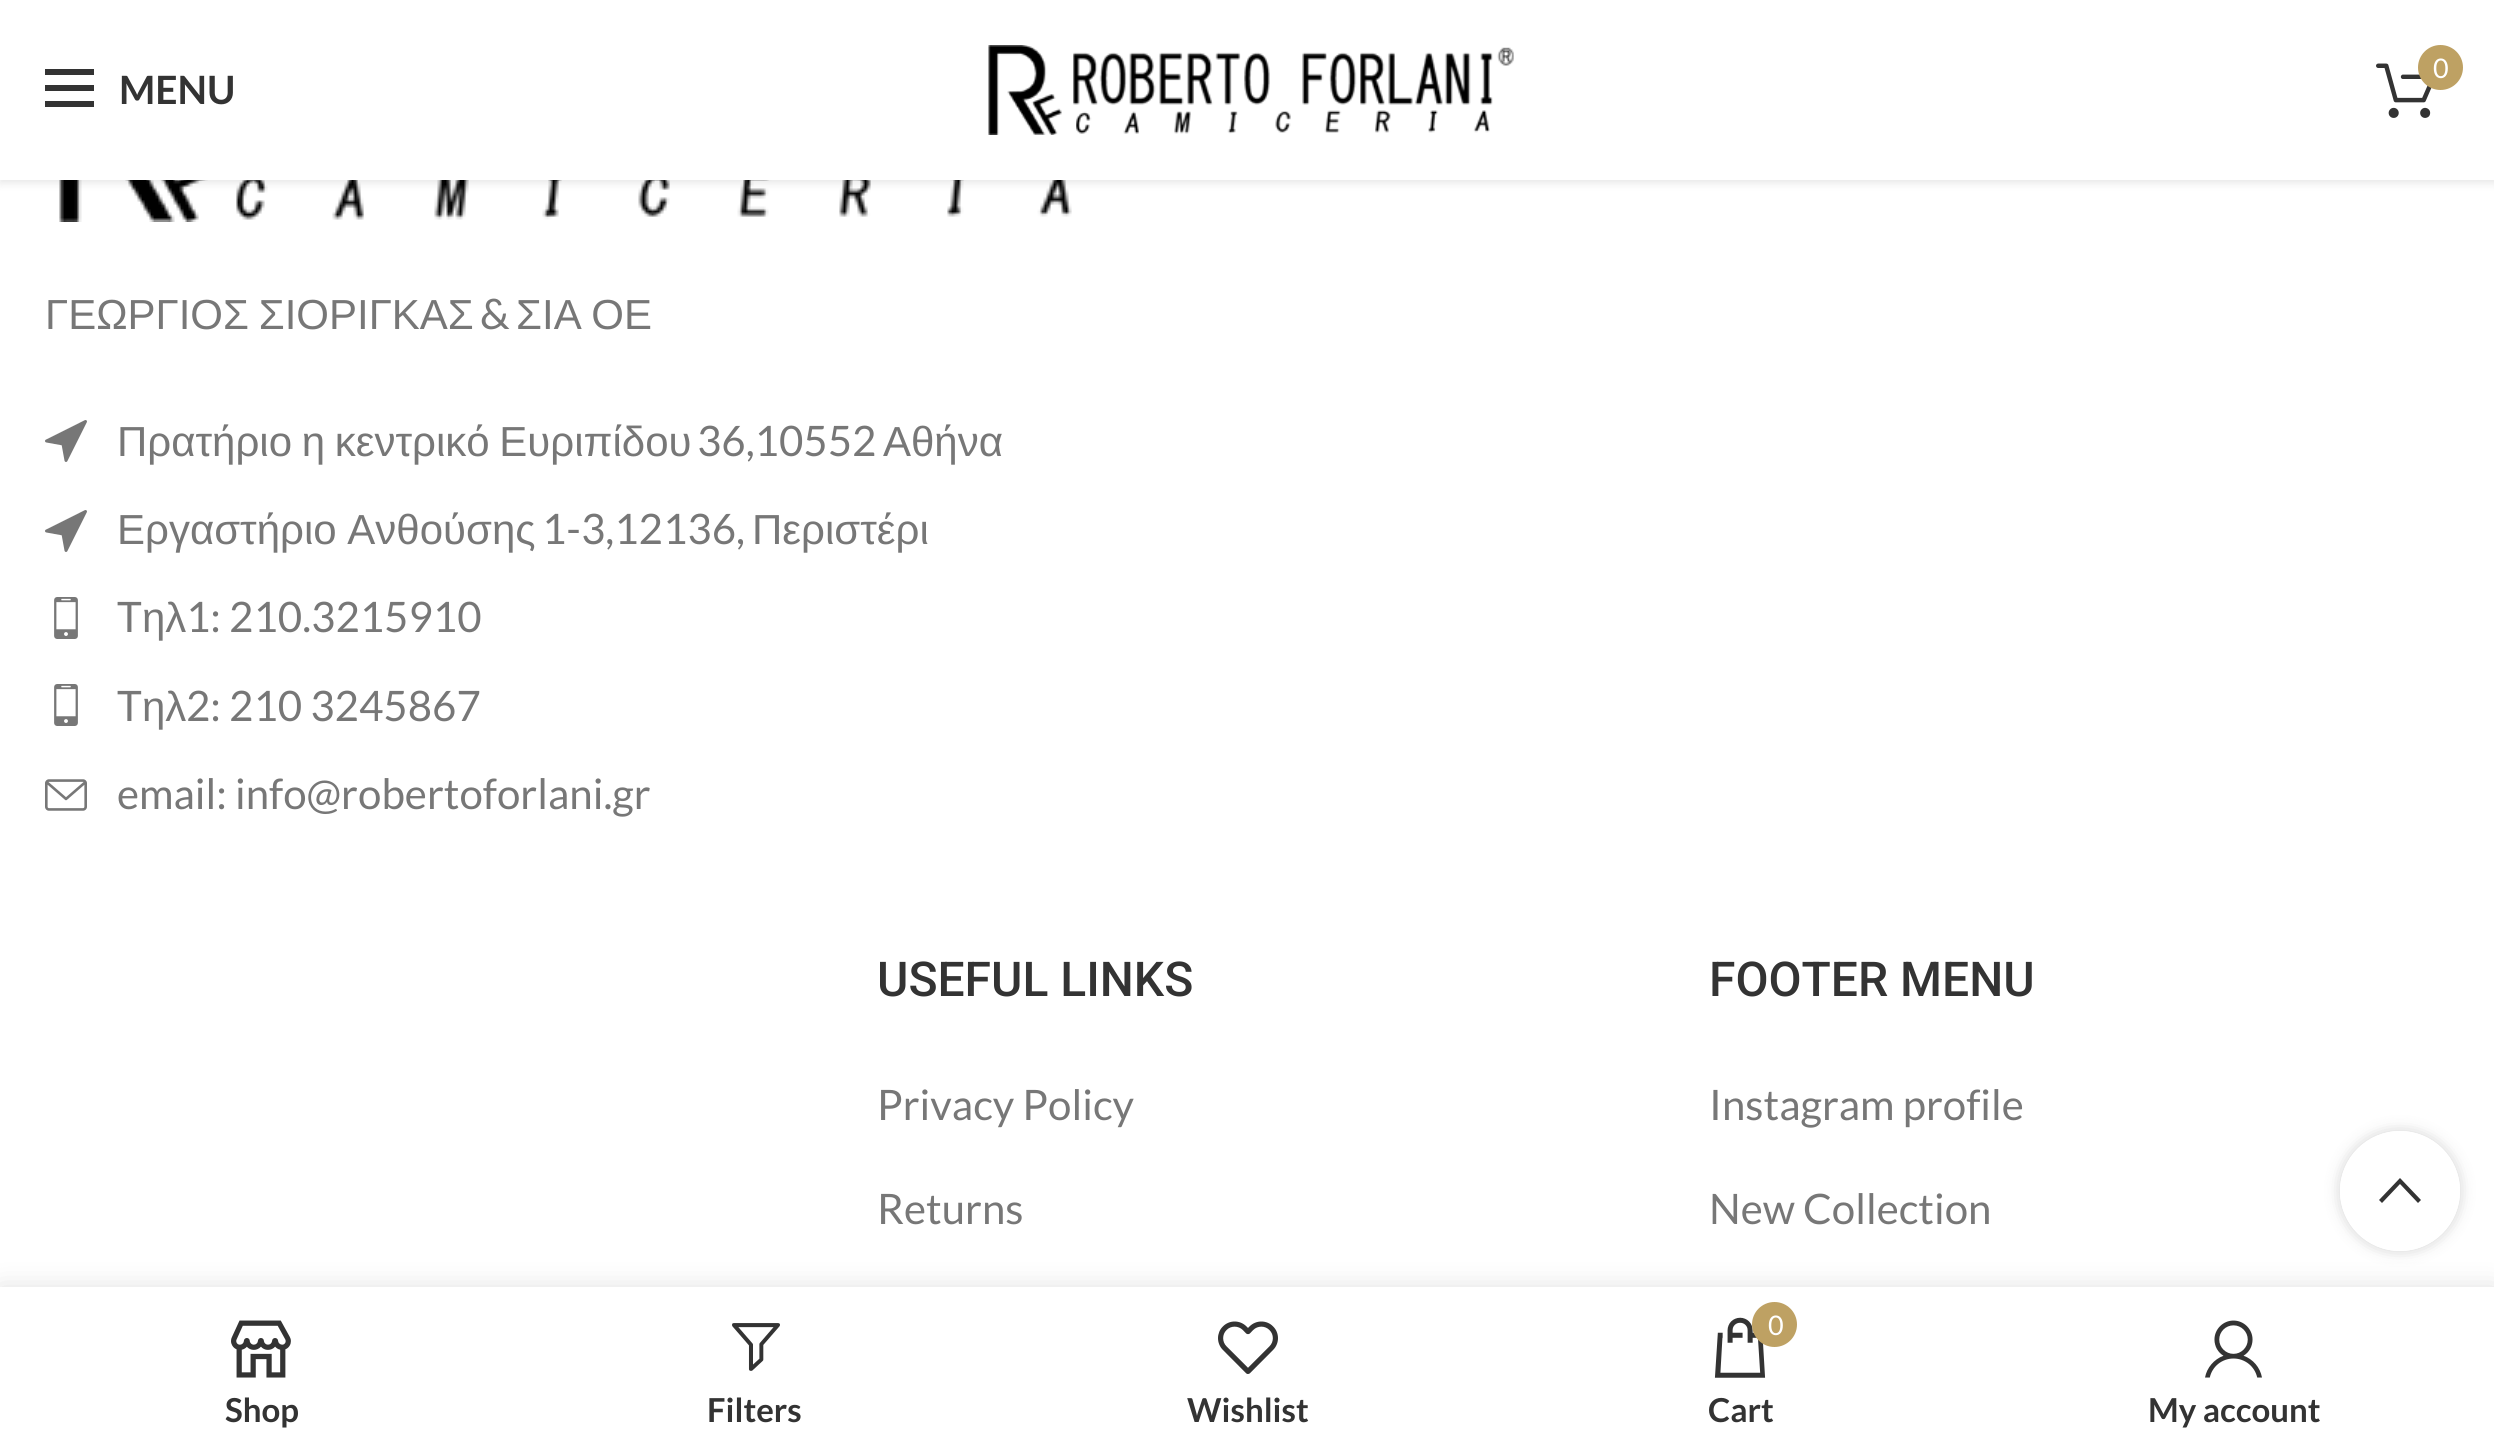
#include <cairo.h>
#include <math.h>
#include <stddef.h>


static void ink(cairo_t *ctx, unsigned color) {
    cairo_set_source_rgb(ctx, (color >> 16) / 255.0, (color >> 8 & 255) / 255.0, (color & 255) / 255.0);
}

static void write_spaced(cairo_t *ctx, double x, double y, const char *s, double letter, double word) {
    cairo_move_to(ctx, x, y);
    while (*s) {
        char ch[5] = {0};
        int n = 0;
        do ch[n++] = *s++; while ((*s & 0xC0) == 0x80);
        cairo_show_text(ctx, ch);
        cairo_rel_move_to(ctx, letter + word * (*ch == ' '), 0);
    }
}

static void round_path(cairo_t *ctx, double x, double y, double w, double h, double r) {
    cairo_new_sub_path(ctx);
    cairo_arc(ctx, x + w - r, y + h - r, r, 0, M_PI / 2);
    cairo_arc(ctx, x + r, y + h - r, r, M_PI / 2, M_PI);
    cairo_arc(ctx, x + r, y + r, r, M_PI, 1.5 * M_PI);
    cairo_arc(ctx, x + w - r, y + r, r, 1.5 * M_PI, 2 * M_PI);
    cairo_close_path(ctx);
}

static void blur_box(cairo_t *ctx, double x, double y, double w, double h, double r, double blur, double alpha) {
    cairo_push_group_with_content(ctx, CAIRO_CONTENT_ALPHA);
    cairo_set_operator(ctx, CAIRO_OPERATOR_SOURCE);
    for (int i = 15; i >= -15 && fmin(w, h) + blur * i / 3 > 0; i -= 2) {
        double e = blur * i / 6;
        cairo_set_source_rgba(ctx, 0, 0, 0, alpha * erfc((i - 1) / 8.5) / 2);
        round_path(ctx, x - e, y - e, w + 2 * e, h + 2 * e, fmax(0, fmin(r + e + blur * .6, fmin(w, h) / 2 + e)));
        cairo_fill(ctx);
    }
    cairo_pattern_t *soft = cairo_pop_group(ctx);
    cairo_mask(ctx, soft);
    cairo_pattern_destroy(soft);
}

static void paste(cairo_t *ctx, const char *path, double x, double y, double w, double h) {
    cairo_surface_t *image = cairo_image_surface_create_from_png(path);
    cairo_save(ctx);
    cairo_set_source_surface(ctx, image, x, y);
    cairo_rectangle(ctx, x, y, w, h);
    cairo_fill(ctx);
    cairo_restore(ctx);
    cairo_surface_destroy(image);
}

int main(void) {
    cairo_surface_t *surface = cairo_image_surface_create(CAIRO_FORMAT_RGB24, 2494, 1451);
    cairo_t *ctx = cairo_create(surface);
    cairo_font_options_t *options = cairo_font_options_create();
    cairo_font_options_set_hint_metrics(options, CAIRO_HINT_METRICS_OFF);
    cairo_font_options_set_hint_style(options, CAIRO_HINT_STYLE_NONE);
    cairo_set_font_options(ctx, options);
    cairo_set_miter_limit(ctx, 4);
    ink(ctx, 0xFFFFFF);
    cairo_paint(ctx);
    paste(ctx, "media/3.png", 59, 180, 1013, 42);
    ink(ctx, 0x000000);
    blur_box(ctx, 0, 3, 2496, 180, 0, 4.5, 0.1);
    ink(ctx, 0xFFFFFF);
    cairo_rectangle(ctx, 0, 0, 2494, 180);
    cairo_fill(ctx);
    paste(ctx, "media/1.png", 988, 45, 526, 90);
    paste(ctx, "media/2.png", 2376, 63, 56, 55);
    ink(ctx, 0xBEA163);
    cairo_arc(ctx, 2440.5, 67.5, 22.5, 0, 2 * M_PI);
    cairo_fill(ctx);
    cairo_select_font_face(ctx, "Lato", CAIRO_FONT_SLANT_NORMAL, CAIRO_FONT_WEIGHT_NORMAL);
    cairo_set_font_size(ctx, 27);
    ink(ctx, 0xFFFFFF);
    cairo_move_to(ctx, 2433, 78);
    cairo_show_text(ctx, "0");
    ink(ctx, 0x333333);
    cairo_new_path(ctx);
    cairo_move_to(ctx, 45, 69);
    cairo_line_to(ctx, 94, 69);
    cairo_line_to(ctx, 94, 75);
    cairo_line_to(ctx, 45, 75);
    cairo_close_path(ctx);
    cairo_move_to(ctx, 45, 85);
    cairo_line_to(ctx, 94, 85);
    cairo_line_to(ctx, 94, 91);
    cairo_line_to(ctx, 45, 91);
    cairo_close_path(ctx);
    cairo_move_to(ctx, 45, 101);
    cairo_line_to(ctx, 94, 101);
    cairo_line_to(ctx, 94, 107);
    cairo_line_to(ctx, 45, 107);
    cairo_close_path(ctx);
    cairo_fill(ctx);
    cairo_select_font_face(ctx, "Lato", CAIRO_FONT_SLANT_NORMAL, CAIRO_FONT_WEIGHT_BOLD);
    cairo_set_font_size(ctx, 39);
    cairo_move_to(ctx, 119, 104);
    cairo_show_text(ctx, "MENU");
    cairo_select_font_face(ctx, "Liberation Sans", CAIRO_FONT_SLANT_NORMAL, CAIRO_FONT_WEIGHT_NORMAL);
    cairo_set_font_size(ctx, 42);
    ink(ctx, 0x777777);
    write_spaced(ctx, 45, 329, "ΓΕΩΡΓΙΟΣ ΣΙΟΡΙΓΚΑΣ", 0, -2);
    cairo_select_font_face(ctx, "Lato", CAIRO_FONT_SLANT_NORMAL, CAIRO_FONT_WEIGHT_NORMAL);
    cairo_move_to(ctx, 480, 329);
    cairo_show_text(ctx, "&");
    cairo_select_font_face(ctx, "Liberation Sans", CAIRO_FONT_SLANT_NORMAL, CAIRO_FONT_WEIGHT_NORMAL);
    write_spaced(ctx, 516, 329, "ΣΙΑ ΟΕ", 0, -2);
    paste(ctx, "media/4.png", 45, 420, 42, 42);
    write_spaced(ctx, 117, 456, "Πρατήριο η κεντρικό Ευριπίδου", 0, -2);
    cairo_select_font_face(ctx, "Lato", CAIRO_FONT_SLANT_NORMAL, CAIRO_FONT_WEIGHT_NORMAL);
    cairo_move_to(ctx, 697, 456);
    cairo_show_text(ctx, "36,10552");
    cairo_select_font_face(ctx, "Liberation Sans", CAIRO_FONT_SLANT_NORMAL, CAIRO_FONT_WEIGHT_NORMAL);
    cairo_move_to(ctx, 883, 456);
    cairo_show_text(ctx, "Αθήνα");
    paste(ctx, "media/4.png", 45, 510, 42, 42);
    write_spaced(ctx, 117, 544, "Εργαστήριο Ανθούσης", 0, -1);
    cairo_select_font_face(ctx, "Lato", CAIRO_FONT_SLANT_NORMAL, CAIRO_FONT_WEIGHT_NORMAL);
    cairo_move_to(ctx, 542, 544);
    cairo_show_text(ctx, "1-3,12136,");
    cairo_select_font_face(ctx, "Liberation Sans", CAIRO_FONT_SLANT_NORMAL, CAIRO_FONT_WEIGHT_NORMAL);
    cairo_move_to(ctx, 752, 544);
    cairo_show_text(ctx, "Περιστέρι");
    paste(ctx, "media/5.png", 54, 597, 24, 42);
    cairo_select_font_face(ctx, "Lato", CAIRO_FONT_SLANT_NORMAL, CAIRO_FONT_WEIGHT_NORMAL);
    cairo_move_to(ctx, 117, 632);
    cairo_show_text(ctx, "T");
    cairo_select_font_face(ctx, "Liberation Sans", CAIRO_FONT_SLANT_NORMAL, CAIRO_FONT_WEIGHT_NORMAL);
    cairo_move_to(ctx, 142, 632);
    cairo_show_text(ctx, "ηλ");
    cairo_select_font_face(ctx, "Lato", CAIRO_FONT_SLANT_NORMAL, CAIRO_FONT_WEIGHT_NORMAL);
    cairo_move_to(ctx, 186, 632);
    cairo_show_text(ctx, "1: 210.3215910");
    paste(ctx, "media/5.png", 54, 684, 24, 42);
    cairo_move_to(ctx, 117, 721);
    cairo_show_text(ctx, "T");
    cairo_select_font_face(ctx, "Liberation Sans", CAIRO_FONT_SLANT_NORMAL, CAIRO_FONT_WEIGHT_NORMAL);
    cairo_move_to(ctx, 142, 721);
    cairo_show_text(ctx, "ηλ");
    cairo_select_font_face(ctx, "Lato", CAIRO_FONT_SLANT_NORMAL, CAIRO_FONT_WEIGHT_NORMAL);
    cairo_move_to(ctx, 186, 721);
    cairo_show_text(ctx, "2: 210 3245867");
    paste(ctx, "media/6.png", 45, 779, 42, 32);
    cairo_move_to(ctx, 117, 809);
    cairo_show_text(ctx, "email: info@robertoforlani.gr");
    cairo_select_font_face(ctx, "Roboto Medium", CAIRO_FONT_SLANT_NORMAL, CAIRO_FONT_WEIGHT_NORMAL);
    cairo_set_font_size(ctx, 48);
    ink(ctx, 0x333333);
    cairo_move_to(ctx, 877, 996);
    cairo_show_text(ctx, "USEFUL LINKS");
    cairo_select_font_face(ctx, "Lato", CAIRO_FONT_SLANT_NORMAL, CAIRO_FONT_WEIGHT_NORMAL);
    cairo_set_font_size(ctx, 42);
    ink(ctx, 0x777777);
    cairo_move_to(ctx, 877, 1120);
    cairo_show_text(ctx, "Privacy Policy");
    cairo_move_to(ctx, 877, 1224);
    cairo_show_text(ctx, "Returns");
    cairo_select_font_face(ctx, "Roboto Medium", CAIRO_FONT_SLANT_NORMAL, CAIRO_FONT_WEIGHT_NORMAL);
    cairo_set_font_size(ctx, 48);
    ink(ctx, 0x333333);
    cairo_move_to(ctx, 1709, 996);
    cairo_show_text(ctx, "FOOTER MENU");
    cairo_select_font_face(ctx, "Lato", CAIRO_FONT_SLANT_NORMAL, CAIRO_FONT_WEIGHT_NORMAL);
    cairo_set_font_size(ctx, 42);
    ink(ctx, 0x777777);
    cairo_move_to(ctx, 1709, 1120);
    cairo_show_text(ctx, "Instagram profile");
    cairo_move_to(ctx, 1709, 1224);
    cairo_show_text(ctx, "New Collection");
    cairo_save(ctx);
    cairo_set_fill_rule(ctx, CAIRO_FILL_RULE_EVEN_ODD);
    cairo_new_path(ctx);
    cairo_move_to(ctx, 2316, 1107);
    cairo_line_to(ctx, 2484, 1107);
    cairo_line_to(ctx, 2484, 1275);
    cairo_line_to(ctx, 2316, 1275);
    cairo_close_path(ctx);
    cairo_move_to(ctx, 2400, 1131);
    cairo_curve_to(ctx, 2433, 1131, 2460, 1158, 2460, 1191);
    cairo_curve_to(ctx, 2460, 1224, 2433, 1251, 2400, 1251);
    cairo_curve_to(ctx, 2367, 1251, 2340, 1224, 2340, 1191);
    cairo_curve_to(ctx, 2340, 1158, 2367, 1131, 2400, 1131);
    cairo_close_path(ctx);
    cairo_clip(ctx);
    ink(ctx, 0x000000);
    blur_box(ctx, 2340, 1131, 120, 120, 60, 7.5, 0.17);
    cairo_restore(ctx);
    cairo_set_source_rgba(ctx, 1, 1, 1, 0.9);
    cairo_arc(ctx, 2400, 1191, 60, 0, 2 * M_PI);
    cairo_fill(ctx);
    ink(ctx, 0x333333);
    cairo_new_path(ctx);
    cairo_move_to(ctx, 2400, 1178);
    cairo_line_to(ctx, 2421, 1200);
    cairo_line_to(ctx, 2418, 1203);
    cairo_line_to(ctx, 2400, 1184);
    cairo_line_to(ctx, 2382, 1203);
    cairo_line_to(ctx, 2379, 1200);
    cairo_close_path(ctx);
    cairo_fill(ctx);
    ink(ctx, 0x000000);
    blur_box(ctx, 0, 1287, 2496, 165, 0, 13.5, 0.12);
    ink(ctx, 0xFFFFFF);
    cairo_rectangle(ctx, 0, 1287, 2494, 164);
    cairo_fill(ctx);
    paste(ctx, "media/7.png", 231, 1320, 60, 58);
    cairo_select_font_face(ctx, "Lato", CAIRO_FONT_SLANT_NORMAL, CAIRO_FONT_WEIGHT_BOLD);
    cairo_set_font_size(ctx, 33);
    ink(ctx, 0x333333);
    cairo_move_to(ctx, 225, 1422);
    cairo_show_text(ctx, "Shop");
    paste(ctx, "media/8.png", 732, 1323, 48, 48);
    cairo_move_to(ctx, 707, 1422);
    cairo_show_text(ctx, "Filters");
    paste(ctx, "media/9.png", 1218, 1321, 60, 53);
    cairo_move_to(ctx, 1187, 1422);
    cairo_show_text(ctx, "Wishlist");
    paste(ctx, "media/10.png", 1714, 1317, 52, 61);
    ink(ctx, 0xBEA163);
    cairo_arc(ctx, 1774.5, 1324.5, 22.5, 0, 2 * M_PI);
    cairo_fill(ctx);
    cairo_select_font_face(ctx, "Lato", CAIRO_FONT_SLANT_NORMAL, CAIRO_FONT_WEIGHT_NORMAL);
    cairo_set_font_size(ctx, 27);
    ink(ctx, 0xFFFFFF);
    cairo_move_to(ctx, 1768, 1335);
    cairo_show_text(ctx, "0");
    cairo_select_font_face(ctx, "Lato", CAIRO_FONT_SLANT_NORMAL, CAIRO_FONT_WEIGHT_BOLD);
    cairo_set_font_size(ctx, 33);
    ink(ctx, 0x333333);
    cairo_move_to(ctx, 1708, 1422);
    cairo_show_text(ctx, "Cart");
    paste(ctx, "media/11.png", 2205, 1320, 57, 58);
    cairo_move_to(ctx, 2148, 1422);
    cairo_show_text(ctx, "My account");
    cairo_surface_write_to_png(surface, "image.png");
    cairo_font_options_destroy(options);
    cairo_destroy(ctx);
    cairo_surface_destroy(surface);
    return 0;
}
